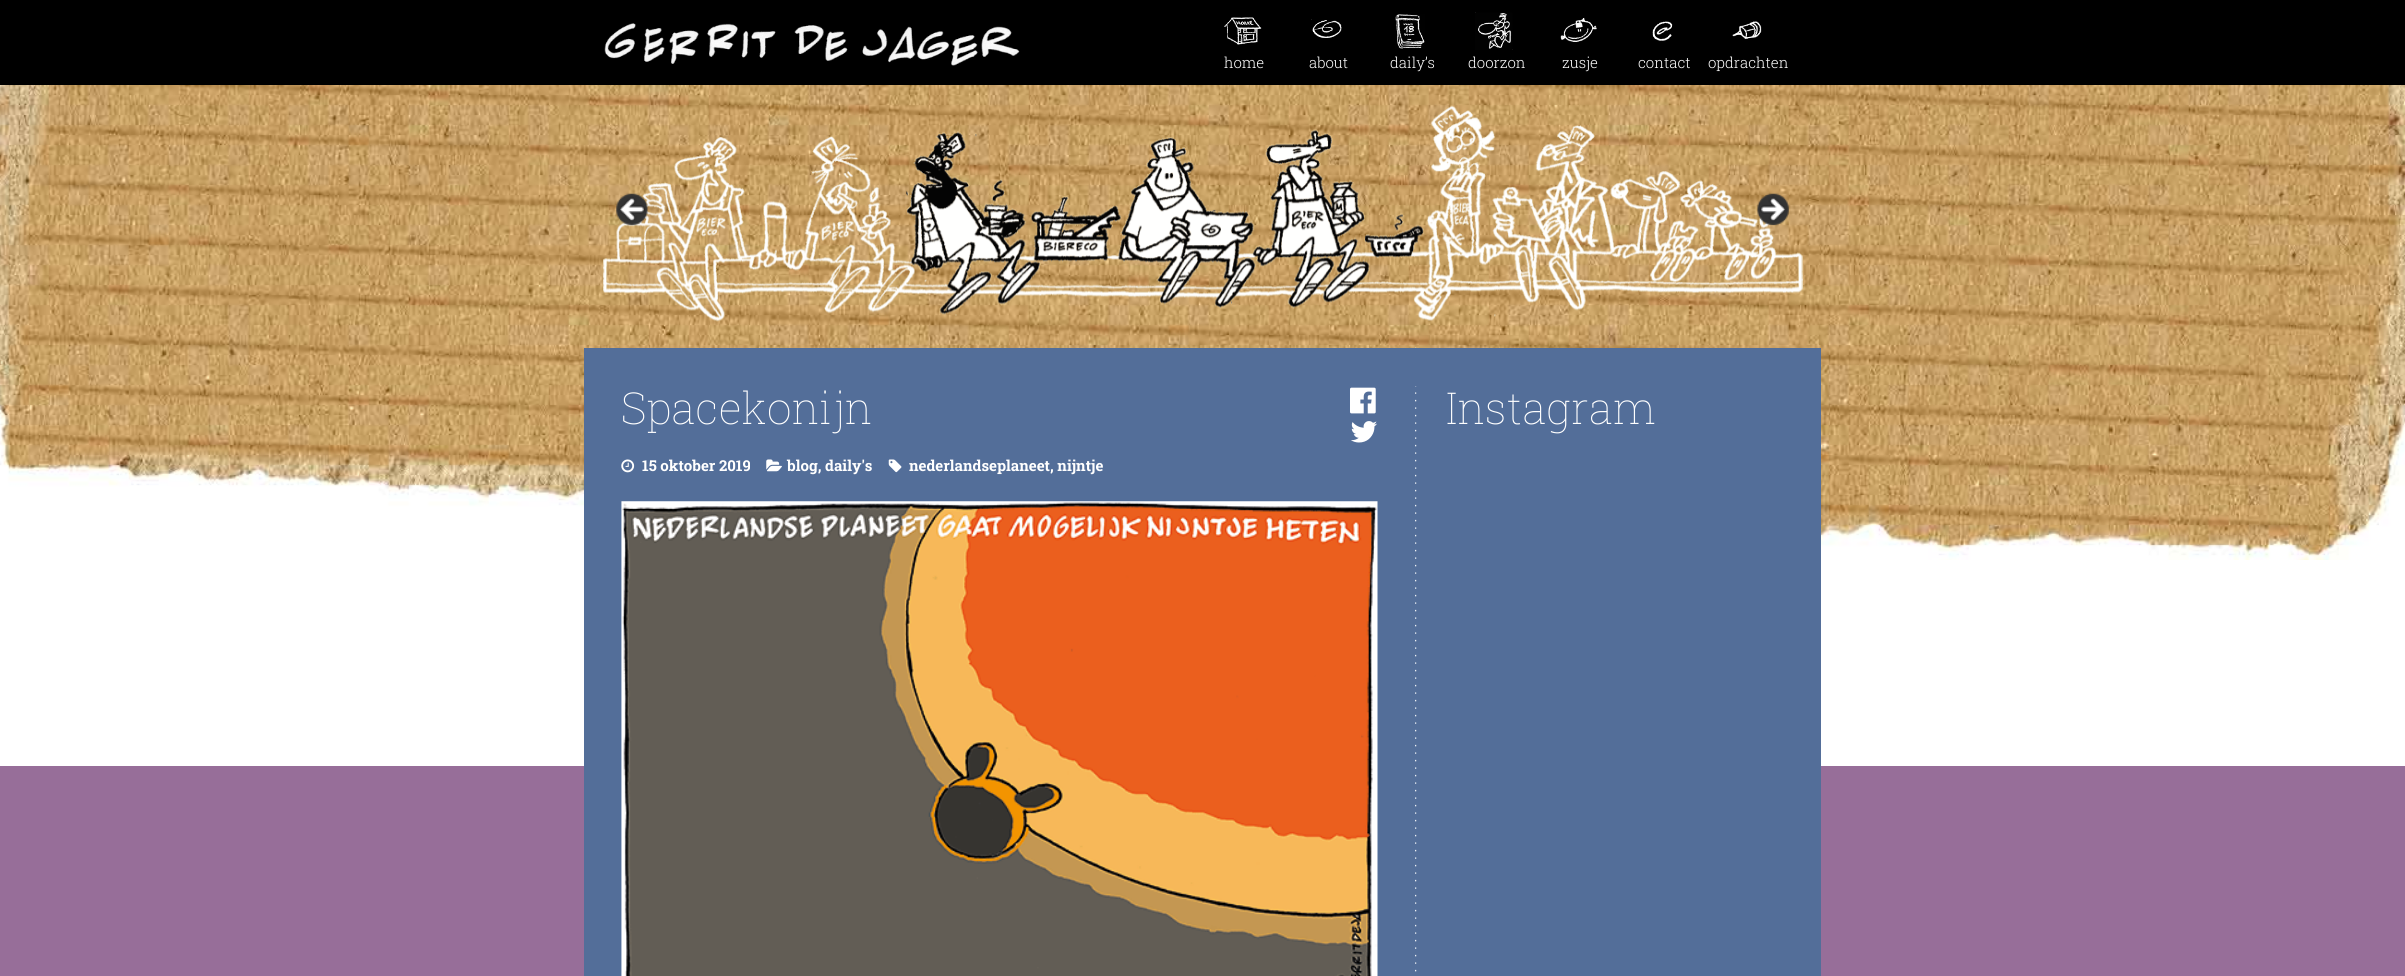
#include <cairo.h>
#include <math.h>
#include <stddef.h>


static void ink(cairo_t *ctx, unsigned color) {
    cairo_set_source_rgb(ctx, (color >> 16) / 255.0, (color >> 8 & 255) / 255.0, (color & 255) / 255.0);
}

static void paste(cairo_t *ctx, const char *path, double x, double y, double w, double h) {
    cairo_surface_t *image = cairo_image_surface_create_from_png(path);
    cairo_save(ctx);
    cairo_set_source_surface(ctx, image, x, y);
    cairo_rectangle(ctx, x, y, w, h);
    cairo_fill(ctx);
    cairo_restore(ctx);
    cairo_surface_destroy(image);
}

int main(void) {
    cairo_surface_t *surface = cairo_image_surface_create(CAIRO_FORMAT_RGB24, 2405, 976);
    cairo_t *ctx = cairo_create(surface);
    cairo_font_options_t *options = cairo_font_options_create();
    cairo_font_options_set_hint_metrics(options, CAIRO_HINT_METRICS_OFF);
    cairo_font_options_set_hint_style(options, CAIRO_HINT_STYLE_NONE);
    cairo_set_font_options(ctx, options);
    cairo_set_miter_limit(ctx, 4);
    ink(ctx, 0x976E99);
    cairo_paint(ctx);
    ink(ctx, 0x000000);
    cairo_rectangle(ctx, 0, 0, 2405, 85);
    cairo_fill(ctx);
    paste(ctx, "media/1.png", 604, 23, 416, 43);
    paste(ctx, "media/2.png", 1224, 17, 38, 28);
    cairo_select_font_face(ctx, "Roboto Slab Light", CAIRO_FONT_SLANT_NORMAL, CAIRO_FONT_WEIGHT_NORMAL);
    cairo_set_font_size(ctx, 15);
    ink(ctx, 0xFFFFFF);
    cairo_move_to(ctx, 1224, 68);
    cairo_show_text(ctx, "home");
    paste(ctx, "media/3.png", 1311, 19, 31, 19);
    cairo_move_to(ctx, 1309, 68);
    cairo_show_text(ctx, "about");
    paste(ctx, "media/4.png", 1395, 14, 30, 35);
    cairo_move_to(ctx, 1390, 68);
    cairo_show_text(ctx, "daily’s");
    paste(ctx, "media/5.png", 1475, 12, 38, 38);
    cairo_move_to(ctx, 1468, 68);
    cairo_show_text(ctx, "doorzon");
    paste(ctx, "media/6.png", 1560, 17, 37, 25);
    cairo_move_to(ctx, 1562, 68);
    cairo_show_text(ctx, "zusje");
    paste(ctx, "media/7.png", 1652, 21, 21, 20);
    cairo_move_to(ctx, 1638, 68);
    cairo_show_text(ctx, "contact");
    paste(ctx, "media/8.png", 1732, 21, 30, 18);
    cairo_move_to(ctx, 1708, 68);
    cairo_show_text(ctx, "opdrachten");
    cairo_rectangle(ctx, 0, 560, 2405, 206);
    cairo_fill(ctx);
    paste(ctx, "media/9.png", 0, 85, 2405, 475);
    paste(ctx, "media/10.png", 603, 105, 1200, 217);
    paste(ctx, "media/11.png", 616, 193, 32, 33);
    paste(ctx, "media/12.png", 1757, 193, 32, 33);
    ink(ctx, 0x536E99);
    cairo_rectangle(ctx, 622, 386, 1161, 590);
    cairo_fill(ctx);
    paste(ctx, "media/13.png", 1415, 347, 2, 625);
    cairo_rectangle(ctx, 603, 367, 1199, 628);
    cairo_set_line_width(ctx, 38);
    cairo_stroke(ctx);
    cairo_select_font_face(ctx, "Roboto Slab Thin", CAIRO_FONT_SLANT_NORMAL, CAIRO_FONT_WEIGHT_NORMAL);
    cairo_set_font_size(ctx, 44);
    ink(ctx, 0xFFFFFF);
    cairo_move_to(ctx, 621, 424);
    cairo_show_text(ctx, "Spacekonijn");
    paste(ctx, "media/14.png", 1350, 387, 26, 27);
    paste(ctx, "media/15.png", 1351, 421, 26, 22);
    paste(ctx, "media/16.png", 621, 459, 14, 14);
    cairo_select_font_face(ctx, "Roboto Slab", CAIRO_FONT_SLANT_NORMAL, CAIRO_FONT_WEIGHT_BOLD);
    cairo_set_font_size(ctx, 15);
    cairo_move_to(ctx, 642, 471);
    cairo_show_text(ctx, "15 oktober 2019");
    paste(ctx, "media/17.png", 766, 459, 16, 13);
    cairo_move_to(ctx, 787, 471);
    cairo_show_text(ctx, "blog, daily's");
    paste(ctx, "media/18.png", 888, 459, 14, 14);
    cairo_move_to(ctx, 909, 471);
    cairo_show_text(ctx, "nederlandseplaneet, nijntje");
    paste(ctx, "media/19.png", 621, 501, 757, 475);
    cairo_select_font_face(ctx, "Roboto Slab Thin", CAIRO_FONT_SLANT_NORMAL, CAIRO_FONT_WEIGHT_NORMAL);
    cairo_set_font_size(ctx, 44);
    cairo_move_to(ctx, 1446, 424);
    cairo_show_text(ctx, "Instagram");
    cairo_surface_write_to_png(surface, "image.png");
    cairo_font_options_destroy(options);
    cairo_destroy(ctx);
    cairo_surface_destroy(surface);
    return 0;
}
